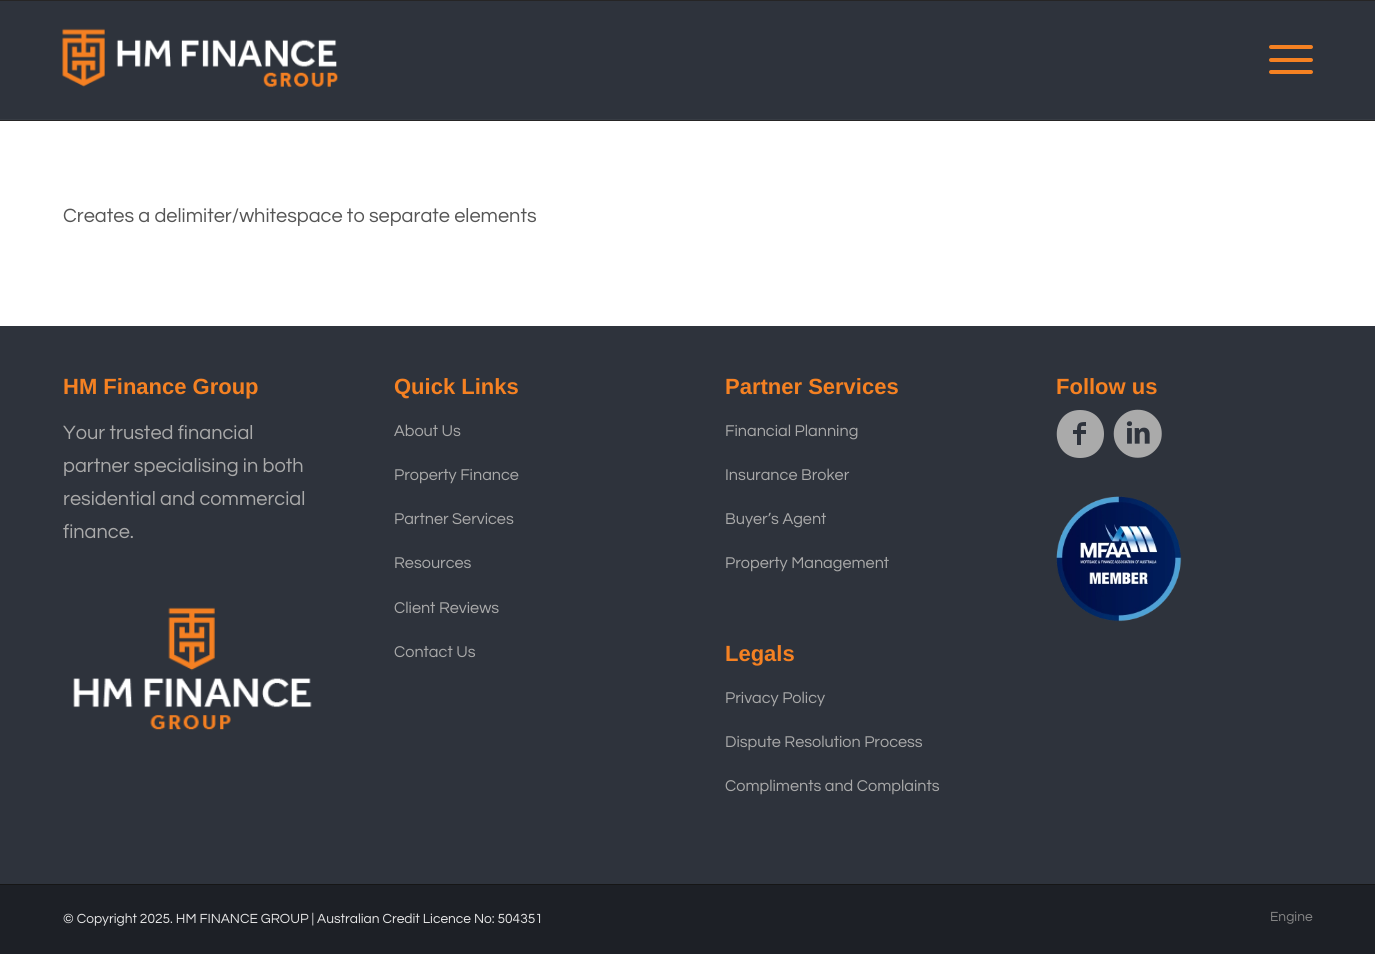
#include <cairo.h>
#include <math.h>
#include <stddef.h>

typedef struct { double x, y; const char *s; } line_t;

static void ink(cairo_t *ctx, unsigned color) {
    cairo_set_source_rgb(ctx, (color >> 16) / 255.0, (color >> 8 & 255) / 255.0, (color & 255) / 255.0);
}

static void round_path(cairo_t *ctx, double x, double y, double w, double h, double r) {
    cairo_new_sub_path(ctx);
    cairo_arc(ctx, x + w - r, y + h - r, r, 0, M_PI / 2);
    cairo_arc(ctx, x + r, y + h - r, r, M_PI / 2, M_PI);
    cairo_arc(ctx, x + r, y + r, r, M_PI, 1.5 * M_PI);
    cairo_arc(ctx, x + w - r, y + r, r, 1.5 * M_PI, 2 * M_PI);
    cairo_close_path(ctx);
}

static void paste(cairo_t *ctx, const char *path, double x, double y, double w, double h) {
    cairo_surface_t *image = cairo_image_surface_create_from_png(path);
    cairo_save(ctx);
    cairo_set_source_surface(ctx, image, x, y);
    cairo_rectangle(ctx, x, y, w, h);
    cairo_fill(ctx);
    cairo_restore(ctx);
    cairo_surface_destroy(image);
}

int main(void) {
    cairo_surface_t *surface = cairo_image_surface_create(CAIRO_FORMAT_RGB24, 1375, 954);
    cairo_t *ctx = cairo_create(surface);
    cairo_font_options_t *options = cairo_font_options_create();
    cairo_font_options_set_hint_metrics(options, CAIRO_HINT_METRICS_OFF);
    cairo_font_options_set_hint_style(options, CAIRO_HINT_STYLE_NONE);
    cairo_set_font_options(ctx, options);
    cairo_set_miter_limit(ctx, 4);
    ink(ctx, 0x2E333C);
    cairo_paint(ctx);
    ink(ctx, 0x262525);
    cairo_rectangle(ctx, 0, 0, 1375, 1);
    cairo_fill(ctx);
    cairo_rectangle(ctx, 0, 120, 1375, 1);
    cairo_fill(ctx);
    paste(ctx, "media/1.png", 62, 28, 276, 59);
    ink(ctx, 0xF58122);
    round_path(ctx, 1269, 58, 44, 4, 2);
    cairo_fill(ctx);
    round_path(ctx, 1269, 45, 44, 4, 2);
    cairo_fill(ctx);
    round_path(ctx, 1269, 70, 44, 4, 2);
    cairo_fill(ctx);
    ink(ctx, 0xFFFFFF);
    cairo_rectangle(ctx, 0, 121, 1375, 205);
    cairo_fill(ctx);
    ink(ctx, 0x373C44);
    cairo_rectangle(ctx, 0, 119, 1375, 1);
    cairo_fill(ctx);
    cairo_select_font_face(ctx, "Questrial", CAIRO_FONT_SLANT_NORMAL, CAIRO_FONT_WEIGHT_NORMAL);
    cairo_set_font_size(ctx, 20);
    ink(ctx, 0x555555);
    cairo_move_to(ctx, 63, 222);
    cairo_show_text(ctx, "Creates a delimiter/whitespace to separate elements");
    cairo_select_font_face(ctx, "Liberation Sans", CAIRO_FONT_SLANT_NORMAL, CAIRO_FONT_WEIGHT_BOLD);
    cairo_set_font_size(ctx, 22);
    ink(ctx, 0xF58122);
    cairo_move_to(ctx, 63, 394);
    cairo_show_text(ctx, "HM Finance Group");
    cairo_select_font_face(ctx, "Questrial", CAIRO_FONT_SLANT_NORMAL, CAIRO_FONT_WEIGHT_NORMAL);
    cairo_set_font_size(ctx, 20);
    ink(ctx, 0xAAAAAA);
    {
        static const line_t items[] = {
            {63, 439, "Your trusted financial"},
            {63, 472, "partner specialising in both"},
            {63, 505, "residential and commercial"},
            {63, 538, "finance."},
        };
        for (size_t i = 0; i < sizeof items / sizeof *items; i++) {
            cairo_move_to(ctx, items[i].x, items[i].y);
            cairo_show_text(ctx, items[i].s);
        }
    }
    paste(ctx, "media/2.png", 73, 607, 239, 123);
    cairo_select_font_face(ctx, "Liberation Sans", CAIRO_FONT_SLANT_NORMAL, CAIRO_FONT_WEIGHT_BOLD);
    cairo_set_font_size(ctx, 22);
    ink(ctx, 0xF58122);
    cairo_move_to(ctx, 394, 394);
    cairo_show_text(ctx, "Quick Links");
    cairo_select_font_face(ctx, "Questrial", CAIRO_FONT_SLANT_NORMAL, CAIRO_FONT_WEIGHT_NORMAL);
    cairo_set_font_size(ctx, 16.25);
    ink(ctx, 0xAAAAAA);
    {
        static const line_t items[] = {
            {394, 436, "About Us"},
            {394, 480, "Property Finance"},
            {394, 524, "Partner Services"},
            {394, 568, "Resources"},
            {394, 613, "Client Reviews"},
            {394, 657, "Contact Us"},
        };
        for (size_t i = 0; i < sizeof items / sizeof *items; i++) {
            cairo_move_to(ctx, items[i].x, items[i].y);
            cairo_show_text(ctx, items[i].s);
        }
    }
    cairo_select_font_face(ctx, "Liberation Sans", CAIRO_FONT_SLANT_NORMAL, CAIRO_FONT_WEIGHT_BOLD);
    cairo_set_font_size(ctx, 22);
    ink(ctx, 0xF58122);
    cairo_move_to(ctx, 725, 394);
    cairo_show_text(ctx, "Partner Services");
    cairo_select_font_face(ctx, "Questrial", CAIRO_FONT_SLANT_NORMAL, CAIRO_FONT_WEIGHT_NORMAL);
    cairo_set_font_size(ctx, 16.25);
    ink(ctx, 0xAAAAAA);
    {
        static const line_t items[] = {
            {725, 436, "Financial Planning"},
            {725, 480, "Insurance Broker"},
            {725, 524, "Buyer’s Agent"},
            {725, 568, "Property Management"},
        };
        for (size_t i = 0; i < sizeof items / sizeof *items; i++) {
            cairo_move_to(ctx, items[i].x, items[i].y);
            cairo_show_text(ctx, items[i].s);
        }
    }
    cairo_select_font_face(ctx, "Liberation Sans", CAIRO_FONT_SLANT_NORMAL, CAIRO_FONT_WEIGHT_BOLD);
    cairo_set_font_size(ctx, 22);
    ink(ctx, 0xF58122);
    cairo_move_to(ctx, 725, 661);
    cairo_show_text(ctx, "Legals");
    cairo_select_font_face(ctx, "Questrial", CAIRO_FONT_SLANT_NORMAL, CAIRO_FONT_WEIGHT_NORMAL);
    cairo_set_font_size(ctx, 16.25);
    ink(ctx, 0xAAAAAA);
    {
        static const line_t items[] = {
            {725, 703, "Privacy Policy"},
            {725, 747, "Dispute Resolution Process"},
            {725, 791, "Compliments and Complaints"},
        };
        for (size_t i = 0; i < sizeof items / sizeof *items; i++) {
            cairo_move_to(ctx, items[i].x, items[i].y);
            cairo_show_text(ctx, items[i].s);
        }
    }
    cairo_select_font_face(ctx, "Liberation Sans", CAIRO_FONT_SLANT_NORMAL, CAIRO_FONT_WEIGHT_BOLD);
    cairo_set_font_size(ctx, 22);
    ink(ctx, 0xF58122);
    cairo_move_to(ctx, 1056, 394);
    cairo_show_text(ctx, "Follow us");
    ink(ctx, 0xAAAAAA);
    cairo_new_path(ctx);
    cairo_move_to(ctx, 1080, 410);
    cairo_curve_to(ctx, 1112, 410, 1112, 458, 1080, 458);
    cairo_curve_to(ctx, 1049, 458, 1049, 410, 1080, 410);
    cairo_close_path(ctx);
    cairo_move_to(ctx, 1086, 426);
    cairo_line_to(ctx, 1086, 422);
    cairo_curve_to(ctx, 1079, 422, 1077, 423, 1077, 430);
    cairo_line_to(ctx, 1073, 430);
    cairo_line_to(ctx, 1073, 434);
    cairo_line_to(ctx, 1077, 434);
    cairo_line_to(ctx, 1077, 445);
    cairo_line_to(ctx, 1081, 445);
    cairo_line_to(ctx, 1081, 434);
    cairo_line_to(ctx, 1086, 434);
    cairo_line_to(ctx, 1086, 430);
    cairo_line_to(ctx, 1081, 430);
    cairo_curve_to(ctx, 1081, 425, 1081, 426, 1086, 426);
    cairo_close_path(ctx);
    cairo_fill(ctx);
    paste(ctx, "media/3.png", 1113, 409, 49, 49);
    paste(ctx, "media/4.png", 1056, 496, 126, 126);
    ink(ctx, 0x1D2026);
    cairo_rectangle(ctx, 0, 885, 1375, 69);
    cairo_fill(ctx);
    ink(ctx, 0x161616);
    cairo_rectangle(ctx, 0, 884, 1375, 1);
    cairo_fill(ctx);
    cairo_select_font_face(ctx, "Questrial", CAIRO_FONT_SLANT_NORMAL, CAIRO_FONT_WEIGHT_NORMAL);
    cairo_set_font_size(ctx, 13.75);
    ink(ctx, 0xE6E6E6);
    cairo_move_to(ctx, 63, 923);
    cairo_show_text(ctx, "© Copyright 2025. HM FINANCE GROUP | Australian Credit Licence No: 504351");
    ink(ctx, 0x858585);
    cairo_move_to(ctx, 1270, 921);
    cairo_show_text(ctx, "Engine");
    cairo_surface_write_to_png(surface, "image.png");
    cairo_font_options_destroy(options);
    cairo_destroy(ctx);
    cairo_surface_destroy(surface);
    return 0;
}
